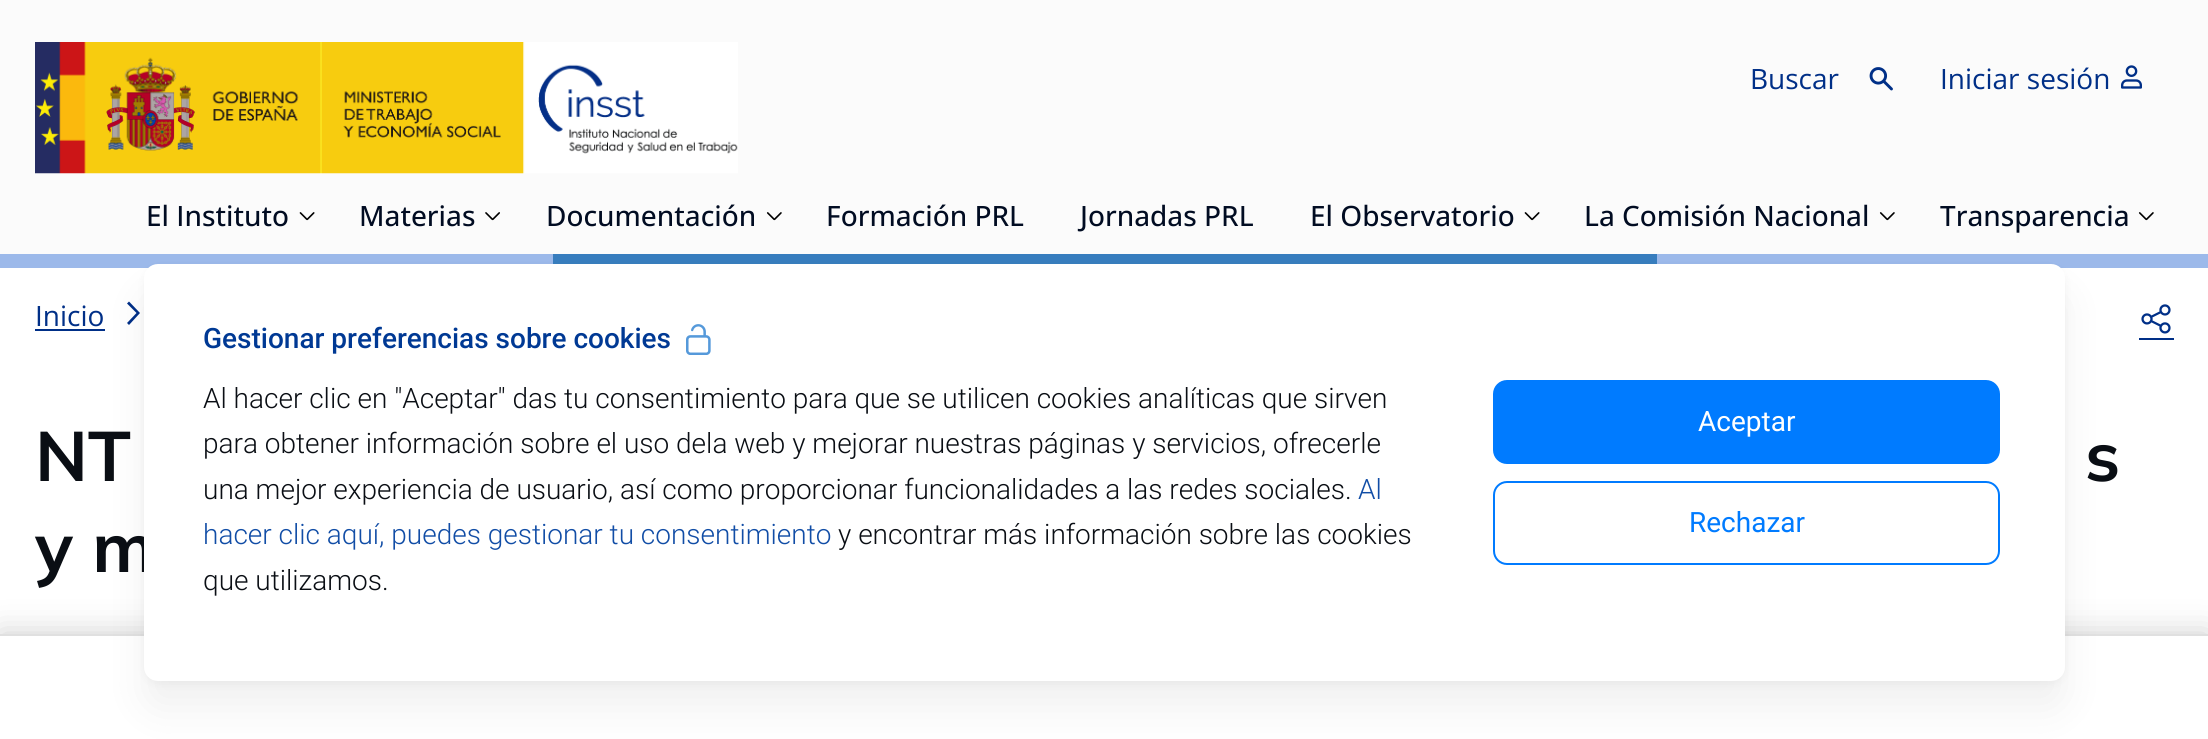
#include <cairo.h>
#include <math.h>
#include <stddef.h>

typedef struct { double x, y; const char *s; } line_t;
typedef struct { double x, y, w, h; unsigned color; } box_t;

static void ink(cairo_t *ctx, unsigned color) {
    cairo_set_source_rgb(ctx, (color >> 16) / 255.0, (color >> 8 & 255) / 255.0, (color & 255) / 255.0);
}

static void round_path(cairo_t *ctx, double x, double y, double w, double h, double r) {
    cairo_new_sub_path(ctx);
    cairo_arc(ctx, x + w - r, y + h - r, r, 0, M_PI / 2);
    cairo_arc(ctx, x + r, y + h - r, r, M_PI / 2, M_PI);
    cairo_arc(ctx, x + r, y + r, r, M_PI, 1.5 * M_PI);
    cairo_arc(ctx, x + w - r, y + r, r, 1.5 * M_PI, 2 * M_PI);
    cairo_close_path(ctx);
}

static void blur_box(cairo_t *ctx, double x, double y, double w, double h, double r, double blur, double alpha) {
    cairo_push_group_with_content(ctx, CAIRO_CONTENT_ALPHA);
    cairo_set_operator(ctx, CAIRO_OPERATOR_SOURCE);
    for (int i = 15; i >= -15 && fmin(w, h) + blur * i / 3 > 0; i -= 2) {
        double e = blur * i / 6;
        cairo_set_source_rgba(ctx, 0, 0, 0, alpha * erfc((i - 1) / 8.5) / 2);
        round_path(ctx, x - e, y - e, w + 2 * e, h + 2 * e, fmax(0, fmin(r + e + blur * .6, fmin(w, h) / 2 + e)));
        cairo_fill(ctx);
    }
    cairo_pattern_t *soft = cairo_pop_group(ctx);
    cairo_mask(ctx, soft);
    cairo_pattern_destroy(soft);
}

static void paste(cairo_t *ctx, const char *path, double x, double y, double w, double h) {
    cairo_surface_t *image = cairo_image_surface_create_from_png(path);
    cairo_save(ctx);
    cairo_set_source_surface(ctx, image, x, y);
    cairo_rectangle(ctx, x, y, w, h);
    cairo_fill(ctx);
    cairo_restore(ctx);
    cairo_surface_destroy(image);
}

int main(void) {
    cairo_surface_t *surface = cairo_image_surface_create(CAIRO_FORMAT_RGB24, 2208, 739);
    cairo_t *ctx = cairo_create(surface);
    cairo_font_options_t *options = cairo_font_options_create();
    cairo_font_options_set_hint_metrics(options, CAIRO_HINT_METRICS_OFF);
    cairo_font_options_set_hint_style(options, CAIRO_HINT_STYLE_NONE);
    cairo_set_font_options(ctx, options);
    cairo_set_miter_limit(ctx, 4);
    ink(ctx, 0xFFFFFF);
    cairo_paint(ctx);
    {
        static const box_t items[] = {
            {0, 0, 2208, 254, 0xFBFBFB},
            {1657, 254, 551, 14, 0x9CB9EA},
            {553, 254, 1104, 10, 0x377DBE},
            {0, 254, 553, 14, 0x9CB9EA},
        };
        for (size_t i = 0; i < sizeof items / sizeof *items; i++) {
            ink(ctx, items[i].color);
            cairo_rectangle(ctx, items[i].x, items[i].y, items[i].w, items[i].h);
            cairo_fill(ctx);
        }
    }
    paste(ctx, "media/1.png", 35, 42, 703, 132);
    cairo_select_font_face(ctx, "Open Sans", CAIRO_FONT_SLANT_NORMAL, CAIRO_FONT_WEIGHT_NORMAL);
    cairo_set_font_size(ctx, 28);
    ink(ctx, 0x002F87);
    cairo_move_to(ctx, 1750, 89);
    cairo_show_text(ctx, "Buscar");
    paste(ctx, "media/2.png", 1869, 67, 24, 24);
    cairo_move_to(ctx, 1940, 89);
    cairo_show_text(ctx, "Iniciar sesión");
    paste(ctx, "media/3.png", 2121, 65, 21, 24);
    cairo_select_font_face(ctx, "Open Sans Medium", CAIRO_FONT_SLANT_NORMAL, CAIRO_FONT_WEIGHT_NORMAL);
    ink(ctx, 0x010C22);
    cairo_move_to(ctx, 146, 226);
    cairo_show_text(ctx, "El Instituto");
    paste(ctx, "media/4.png", 299, 212, 16, 9);
    cairo_move_to(ctx, 359, 226);
    cairo_show_text(ctx, "Materias");
    paste(ctx, "media/5.png", 485, 212, 15, 9);
    cairo_move_to(ctx, 546, 226);
    cairo_show_text(ctx, "Documentación");
    paste(ctx, "media/6.png", 766, 212, 16, 9);
    {
        static const line_t items[] = {
            {826, 226, "Formación PRL"},
            {1080, 226, "Jornadas PRL"},
            {1310, 226, "El Observatorio"},
        };
        for (size_t i = 0; i < sizeof items / sizeof *items; i++) {
            cairo_move_to(ctx, items[i].x, items[i].y);
            cairo_show_text(ctx, items[i].s);
        }
    }
    paste(ctx, "media/4.png", 1524, 212, 16, 9);
    cairo_move_to(ctx, 1584, 226);
    cairo_show_text(ctx, "La Comisión Nacional");
    paste(ctx, "media/6.png", 1879, 212, 16, 9);
    cairo_move_to(ctx, 1940, 226);
    cairo_show_text(ctx, "Transparencia");
    paste(ctx, "media/6.png", 2138, 212, 16, 9);
    cairo_select_font_face(ctx, "Open Sans", CAIRO_FONT_SLANT_NORMAL, CAIRO_FONT_WEIGHT_NORMAL);
    ink(ctx, 0x002F87);
    cairo_move_to(ctx, 35, 326);
    cairo_show_text(ctx, "Inicio");
    cairo_rectangle(ctx, 35, 329, 70, 2);
    cairo_fill(ctx);
    cairo_new_path(ctx);
    cairo_move_to(ctx, 129, 301.5);
    cairo_line_to(ctx, 127, 303.5);
    cairo_line_to(ctx, 136.5, 313);
    cairo_line_to(ctx, 127, 323);
    cairo_line_to(ctx, 129, 325);
    cairo_line_to(ctx, 140, 313);
    cairo_close_path(ctx);
    cairo_fill(ctx);
    paste(ctx, "media/7.png", 2141, 304, 30, 30);
    cairo_rectangle(ctx, 2139, 338, 35, 2);
    cairo_fill(ctx);
    cairo_select_font_face(ctx, "Mulish", CAIRO_FONT_SLANT_NORMAL, CAIRO_FONT_WEIGHT_BOLD);
    cairo_set_font_size(ctx, 70);
    ink(ctx, 0x0A0E14);
    {
        static const line_t items[] = {
            {35, 481, "NT"},
            {2085, 481, "s"},
            {35, 572, "y m"},
        };
        for (size_t i = 0; i < sizeof items / sizeof *items; i++) {
            cairo_move_to(ctx, items[i].x, items[i].y);
            cairo_show_text(ctx, items[i].s);
        }
    }
    ink(ctx, 0x000000);
    blur_box(ctx, 0, 634, 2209, 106, 0, 16, 0.2);
    ink(ctx, 0xFFFFFF);
    cairo_rectangle(ctx, 0, 636, 2208, 103);
    cairo_fill(ctx);
    ink(ctx, 0xE0E0E0);
    cairo_rectangle(ctx, 0, 634, 2208, 2);
    cairo_fill(ctx);
    ink(ctx, 0x000000);
    blur_box(ctx, 144, 268, 1921, 416, 14, 5, 0.04);
    blur_box(ctx, 144, 292, 1921, 417, 14, 21, 0.06);
    ink(ctx, 0xFFFFFF);
    round_path(ctx, 144, 264, 1921, 417, 14);
    cairo_fill(ctx);
    cairo_select_font_face(ctx, "Roboto Medium", CAIRO_FONT_SLANT_NORMAL, CAIRO_FONT_WEIGHT_NORMAL);
    cairo_set_font_size(ctx, 28);
    ink(ctx, 0x003994);
    cairo_move_to(ctx, 203, 348);
    cairo_show_text(ctx, "Gestionar preferencias sobre cookies");
    paste(ctx, "media/8.png", 686, 324, 25, 31);
    cairo_select_font_face(ctx, "Roboto Light", CAIRO_FONT_SLANT_NORMAL, CAIRO_FONT_WEIGHT_NORMAL);
    ink(ctx, 0x0A0E14);
    {
        static const line_t items[] = {
            {203, 408, "Al hacer clic en \"Aceptar\" das tu consentimiento para que se utilicen cookies analíticas que sirven"},
            {203, 453, "para obtener información sobre el uso dela web y mejorar nuestras páginas y servicios, ofrecerle"},
            {203, 499, "una mejor experiencia de usuario, así como proporcionar funcionalidades a las redes sociales."},
        };
        for (size_t i = 0; i < sizeof items / sizeof *items; i++) {
            cairo_move_to(ctx, items[i].x, items[i].y);
            cairo_show_text(ctx, items[i].s);
        }
    }
    ink(ctx, 0x114DA6);
    cairo_move_to(ctx, 1358, 499);
    cairo_show_text(ctx, "Al");
    cairo_move_to(ctx, 203, 544);
    cairo_show_text(ctx, "hacer clic aquí, puedes gestionar tu consentimiento");
    ink(ctx, 0x0A0E14);
    cairo_move_to(ctx, 838, 544);
    cairo_show_text(ctx, "y encontrar más información sobre las cookies");
    cairo_move_to(ctx, 203, 590);
    cairo_show_text(ctx, "que utilizamos.");
    ink(ctx, 0x007BFF);
    round_path(ctx, 1494, 381, 505, 82, 13);
    cairo_fill_preserve(ctx);
    cairo_stroke(ctx);
    cairo_select_font_face(ctx, "Roboto", CAIRO_FONT_SLANT_NORMAL, CAIRO_FONT_WEIGHT_NORMAL);
    ink(ctx, 0xFFFFFF);
    cairo_move_to(ctx, 1698, 431);
    cairo_show_text(ctx, "Aceptar");
    round_path(ctx, 1494, 482, 505, 82, 13);
    ink(ctx, 0x007BFF);
    cairo_stroke(ctx);
    cairo_move_to(ctx, 1689, 532);
    cairo_show_text(ctx, "Rechazar");
    cairo_surface_write_to_png(surface, "image.png");
    cairo_font_options_destroy(options);
    cairo_destroy(ctx);
    cairo_surface_destroy(surface);
    return 0;
}
